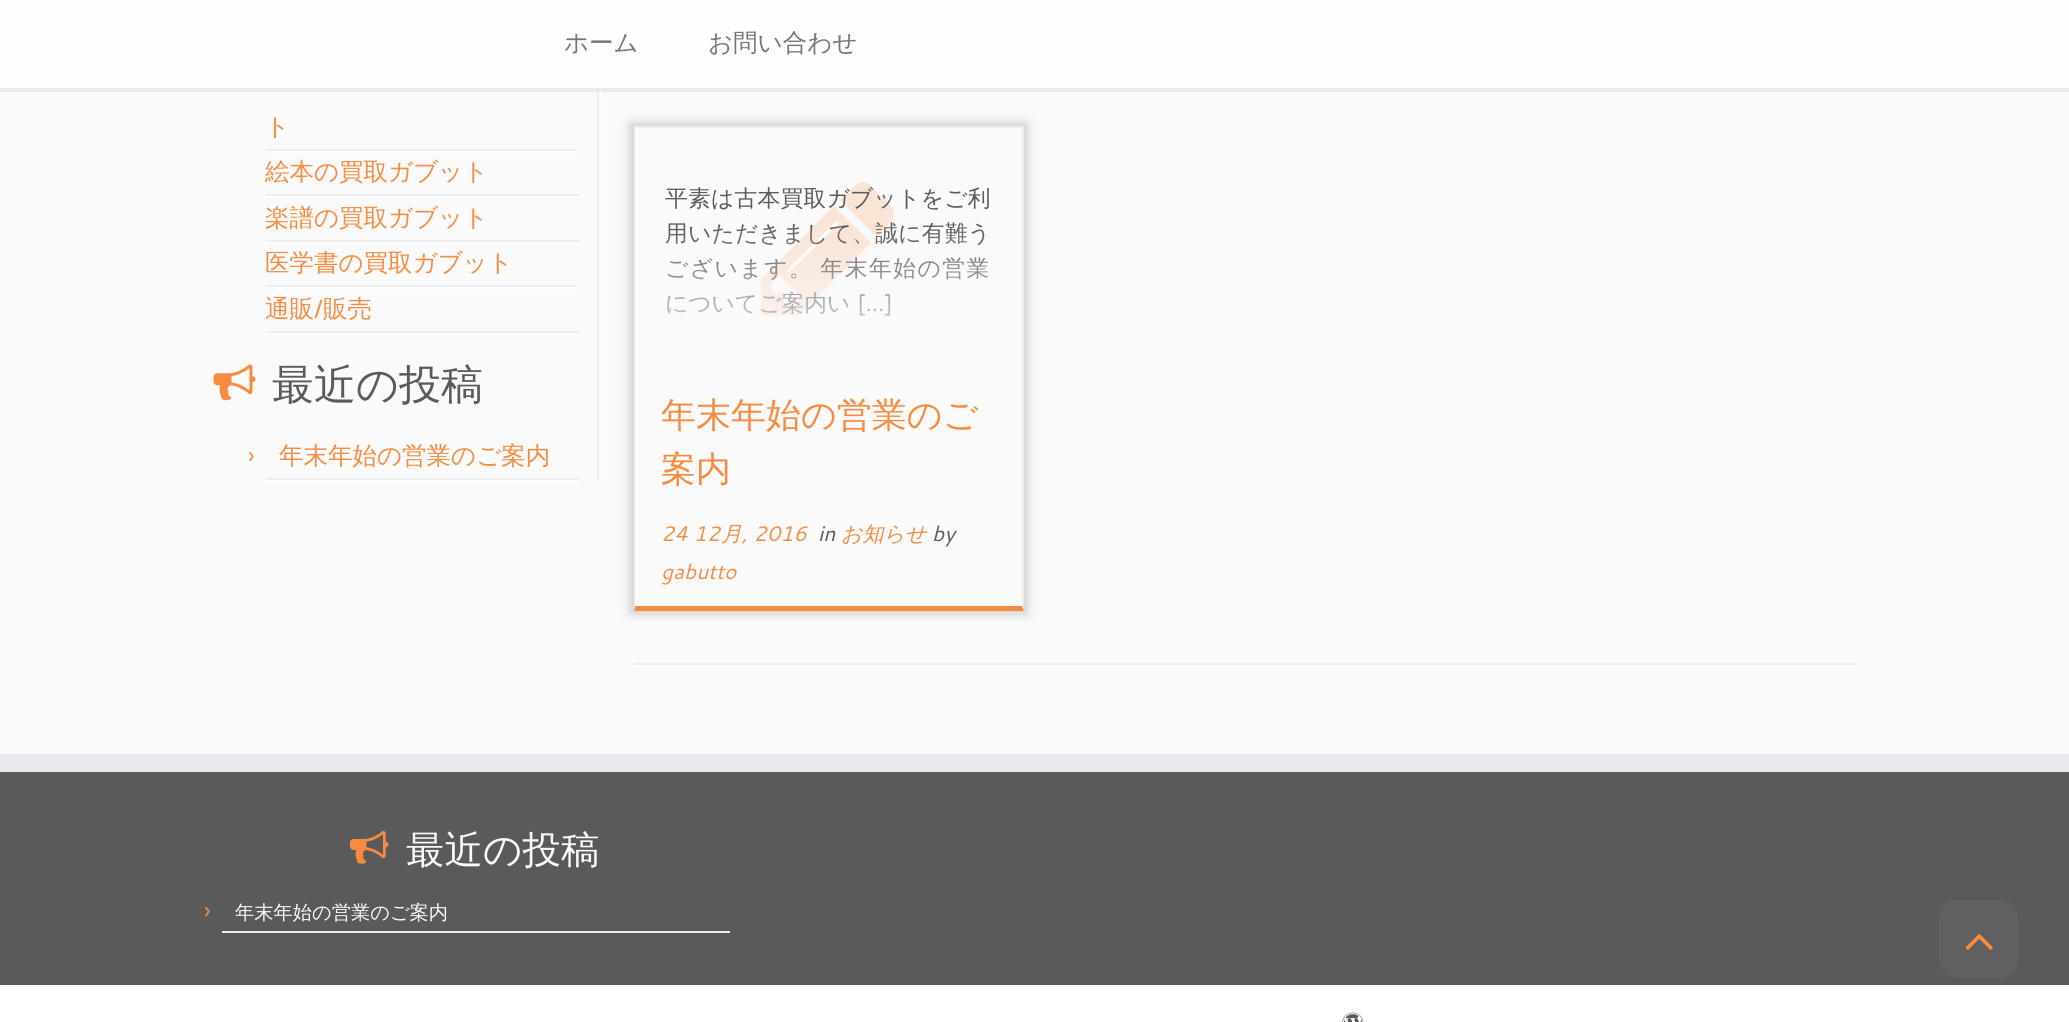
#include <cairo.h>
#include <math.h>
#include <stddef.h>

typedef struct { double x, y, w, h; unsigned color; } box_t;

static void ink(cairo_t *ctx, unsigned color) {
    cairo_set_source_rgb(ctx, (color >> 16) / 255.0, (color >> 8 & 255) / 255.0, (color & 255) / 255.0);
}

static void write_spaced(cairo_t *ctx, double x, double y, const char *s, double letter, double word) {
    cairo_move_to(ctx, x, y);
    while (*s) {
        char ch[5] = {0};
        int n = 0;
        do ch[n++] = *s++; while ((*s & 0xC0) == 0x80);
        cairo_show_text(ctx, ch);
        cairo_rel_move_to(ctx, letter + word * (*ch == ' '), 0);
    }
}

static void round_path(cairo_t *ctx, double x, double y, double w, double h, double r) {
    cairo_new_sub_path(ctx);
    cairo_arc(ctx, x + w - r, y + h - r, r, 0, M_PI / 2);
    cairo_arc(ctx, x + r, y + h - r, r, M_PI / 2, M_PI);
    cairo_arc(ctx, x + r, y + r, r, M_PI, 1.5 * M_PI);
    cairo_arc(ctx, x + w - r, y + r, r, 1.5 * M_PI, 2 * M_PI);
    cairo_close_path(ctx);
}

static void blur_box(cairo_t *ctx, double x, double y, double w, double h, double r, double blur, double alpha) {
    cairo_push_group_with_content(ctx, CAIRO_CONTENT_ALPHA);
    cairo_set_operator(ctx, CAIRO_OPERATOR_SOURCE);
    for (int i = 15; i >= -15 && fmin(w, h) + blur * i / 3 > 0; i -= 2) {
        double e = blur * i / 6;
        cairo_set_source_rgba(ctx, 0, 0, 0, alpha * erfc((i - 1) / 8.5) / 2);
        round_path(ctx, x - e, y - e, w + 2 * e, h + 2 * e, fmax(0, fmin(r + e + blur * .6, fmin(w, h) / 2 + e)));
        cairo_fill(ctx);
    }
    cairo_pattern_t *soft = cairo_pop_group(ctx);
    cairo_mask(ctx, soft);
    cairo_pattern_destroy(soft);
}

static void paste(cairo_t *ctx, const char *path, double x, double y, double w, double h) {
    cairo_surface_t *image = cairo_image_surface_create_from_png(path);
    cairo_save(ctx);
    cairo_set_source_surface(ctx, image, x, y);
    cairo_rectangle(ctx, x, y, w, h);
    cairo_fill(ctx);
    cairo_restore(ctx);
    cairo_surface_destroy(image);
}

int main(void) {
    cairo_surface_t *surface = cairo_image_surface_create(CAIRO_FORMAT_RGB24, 2069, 1022);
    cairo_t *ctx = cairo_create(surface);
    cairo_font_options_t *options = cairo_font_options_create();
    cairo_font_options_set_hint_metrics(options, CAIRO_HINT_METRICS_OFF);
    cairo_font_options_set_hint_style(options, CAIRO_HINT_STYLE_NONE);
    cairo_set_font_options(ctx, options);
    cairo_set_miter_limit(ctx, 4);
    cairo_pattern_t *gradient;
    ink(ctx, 0xFAFAFA);
    cairo_paint(ctx);
    ink(ctx, 0xEEEEEE);
    cairo_rectangle(ctx, 597, 0, 2, 480);
    cairo_fill(ctx);
    cairo_rectangle(ctx, 266, 60, 313, 1);
    cairo_fill(ctx);
    ink(ctx, 0xFFFFFF);
    cairo_rectangle(ctx, 266, 61, 313, 2);
    cairo_fill(ctx);
    cairo_rectangle(ctx, 599, 0, 2, 480);
    cairo_fill(ctx);
    ink(ctx, 0xEEEEEE);
    cairo_rectangle(ctx, 634, 70, 1225, 2);
    cairo_fill(ctx);
    ink(ctx, 0xFFFFFF);
    cairo_rectangle(ctx, 634, 72, 1225, 2);
    cairo_fill(ctx);
    cairo_set_source_rgba(ctx, 1, 1, 1, 0.8);
    cairo_rectangle(ctx, 0, 0, 2069, 88);
    cairo_fill(ctx);
    ink(ctx, 0xE9EAEE);
    cairo_rectangle(ctx, 0, 88, 2069, 4);
    cairo_fill(ctx);
    cairo_select_font_face(ctx, "WenQuanYi Zen Hei Medium", CAIRO_FONT_SLANT_NORMAL, CAIRO_FONT_WEIGHT_NORMAL);
    cairo_set_font_size(ctx, 24.5);
    ink(ctx, 0x777777);
    cairo_move_to(ctx, 564, 51);
    cairo_show_text(ctx, "ホーム");
    cairo_move_to(ctx, 708, 51);
    cairo_show_text(ctx, "お問い合わせ");
    ink(ctx, 0xEEEEEE);
    cairo_rectangle(ctx, 266, 149, 313, 2);
    cairo_fill(ctx);
    ink(ctx, 0xF78C40);
    cairo_move_to(ctx, 265, 135);
    cairo_show_text(ctx, "ト");
    ink(ctx, 0xFFFFFF);
    cairo_rectangle(ctx, 266, 151, 313, 2);
    cairo_fill(ctx);
    ink(ctx, 0xEEEEEE);
    cairo_rectangle(ctx, 266, 194, 313, 2);
    cairo_fill(ctx);
    ink(ctx, 0xF78C40);
    cairo_move_to(ctx, 265, 180);
    cairo_show_text(ctx, "絵本の買取ガブット");
    ink(ctx, 0xFFFFFF);
    cairo_rectangle(ctx, 266, 196, 313, 2);
    cairo_fill(ctx);
    ink(ctx, 0xEEEEEE);
    cairo_rectangle(ctx, 266, 240, 313, 2);
    cairo_fill(ctx);
    ink(ctx, 0xF78C40);
    cairo_move_to(ctx, 265, 226);
    cairo_show_text(ctx, "楽譜の買取ガブット");
    ink(ctx, 0xFFFFFF);
    cairo_rectangle(ctx, 266, 242, 313, 2);
    cairo_fill(ctx);
    ink(ctx, 0xEEEEEE);
    cairo_rectangle(ctx, 266, 285, 313, 2);
    cairo_fill(ctx);
    ink(ctx, 0xF78C40);
    cairo_move_to(ctx, 265, 271);
    cairo_show_text(ctx, "医学書の買取ガブット");
    ink(ctx, 0xFFFFFF);
    cairo_rectangle(ctx, 266, 287, 313, 2);
    cairo_fill(ctx);
    ink(ctx, 0xEEEEEE);
    cairo_rectangle(ctx, 266, 331, 313, 2);
    cairo_fill(ctx);
    ink(ctx, 0xF78C40);
    cairo_move_to(ctx, 265, 317);
    cairo_show_text(ctx, "通販");
    cairo_select_font_face(ctx, "Cantarell", CAIRO_FONT_SLANT_NORMAL, CAIRO_FONT_WEIGHT_NORMAL);
    cairo_move_to(ctx, 314, 317);
    cairo_show_text(ctx, "/");
    cairo_select_font_face(ctx, "WenQuanYi Zen Hei Medium", CAIRO_FONT_SLANT_NORMAL, CAIRO_FONT_WEIGHT_NORMAL);
    cairo_move_to(ctx, 323, 317);
    cairo_show_text(ctx, "販売");
    ink(ctx, 0xFFFFFF);
    cairo_rectangle(ctx, 266, 333, 313, 2);
    cairo_fill(ctx);
    paste(ctx, "media/1.png", 213, 364, 43, 37);
    cairo_set_font_size(ctx, 42);
    ink(ctx, 0x5A5A5A);
    cairo_move_to(ctx, 272, 399);
    cairo_show_text(ctx, "最近の投稿");
    ink(ctx, 0xEEEEEE);
    cairo_rectangle(ctx, 266, 478, 313, 2);
    cairo_fill(ctx);
    cairo_select_font_face(ctx, "Cantarell", CAIRO_FONT_SLANT_NORMAL, CAIRO_FONT_WEIGHT_NORMAL);
    cairo_set_font_size(ctx, 24.5);
    ink(ctx, 0xF78C40);
    cairo_move_to(ctx, 248, 464);
    cairo_show_text(ctx, "›");
    cairo_select_font_face(ctx, "WenQuanYi Zen Hei Medium", CAIRO_FONT_SLANT_NORMAL, CAIRO_FONT_WEIGHT_NORMAL);
    cairo_move_to(ctx, 279, 464);
    cairo_show_text(ctx, "年末年始の営業のご案内");
    ink(ctx, 0xFFFFFF);
    cairo_rectangle(ctx, 266, 480, 313, 2);
    cairo_fill(ctx);
    cairo_save(ctx);
    cairo_set_fill_rule(ctx, CAIRO_FILL_RULE_EVEN_ODD);
    cairo_new_path(ctx);
    cairo_move_to(ctx, 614, 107);
    cairo_line_to(ctx, 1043, 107);
    cairo_line_to(ctx, 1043, 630);
    cairo_line_to(ctx, 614, 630);
    cairo_close_path(ctx);
    cairo_move_to(ctx, 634, 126);
    cairo_line_to(ctx, 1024, 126);
    cairo_line_to(ctx, 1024, 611);
    cairo_line_to(ctx, 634, 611);
    cairo_close_path(ctx);
    cairo_clip(ctx);
    ink(ctx, 0xCCCCCC);
    blur_box(ctx, 630, 123, 397, 491, 0, 5, 1);
    cairo_restore(ctx);
    ink(ctx, 0xEEEEEE);
    cairo_rectangle(ctx, 634, 126, 390, 2);
    cairo_fill(ctx);
    cairo_new_path(ctx);
    cairo_move_to(ctx, 1024, 126);
    cairo_line_to(ctx, 1024, 611);
    cairo_line_to(ctx, 1022, 606);
    cairo_line_to(ctx, 1022, 128);
    cairo_close_path(ctx);
    cairo_fill(ctx);
    ink(ctx, 0xF78C40);
    cairo_new_path(ctx);
    cairo_move_to(ctx, 1024, 611);
    cairo_line_to(ctx, 634, 611);
    cairo_line_to(ctx, 635, 606);
    cairo_line_to(ctx, 1022, 606);
    cairo_close_path(ctx);
    cairo_fill(ctx);
    ink(ctx, 0xEEEEEE);
    cairo_new_path(ctx);
    cairo_move_to(ctx, 634, 611);
    cairo_line_to(ctx, 634, 126);
    cairo_line_to(ctx, 635, 128);
    cairo_line_to(ctx, 635, 606);
    cairo_close_path(ctx);
    cairo_fill(ctx);
    ink(ctx, 0xF9E4D5);
    cairo_new_path(ctx);
    cairo_move_to(ctx, 793, 304);
    cairo_line_to(ctx, 801, 297);
    cairo_line_to(ctx, 780, 276);
    cairo_line_to(ctx, 772, 284);
    cairo_line_to(ctx, 772, 293);
    cairo_line_to(ctx, 784, 293);
    cairo_line_to(ctx, 784, 304);
    cairo_close_path(ctx);
    cairo_move_to(ctx, 839, 223);
    cairo_curve_to(ctx, 839, 221, 838, 221, 836, 221);
    cairo_line_to(ctx, 788, 269);
    cairo_line_to(ctx, 787, 271);
    cairo_curve_to(ctx, 787, 272, 789, 273, 790, 272);
    cairo_line_to(ctx, 839, 224);
    cairo_close_path(ctx);
    cairo_move_to(ctx, 834, 206);
    cairo_line_to(ctx, 871, 243);
    cairo_line_to(ctx, 798, 316);
    cairo_line_to(ctx, 761, 316);
    cairo_line_to(ctx, 761, 279);
    cairo_close_path(ctx);
    cairo_move_to(ctx, 894, 215);
    cairo_curve_to(ctx, 894, 218, 893, 220, 891, 222);
    cairo_line_to(ctx, 877, 237);
    cairo_line_to(ctx, 840, 200);
    cairo_line_to(ctx, 850, 191);
    cairo_curve_to(ctx, 855, 185, 861, 179, 869, 184);
    cairo_line_to(ctx, 888, 203);
    cairo_curve_to(ctx, 891, 206, 894, 209, 894, 215);
    cairo_close_path(ctx);
    cairo_fill(ctx);
    cairo_set_font_size(ctx, 22.75);
    ink(ctx, 0x5A5A5A);
    write_spaced(ctx, 665, 206, "平素は古本買取ガブットをご利", 0.25, 0);
    write_spaced(ctx, 665, 241, "用いただきまして、誠に有難う", 0.2, 0);
    write_spaced(ctx, 665, 276, "ございます。 年末年始の営業", 1.5, -1);
    cairo_move_to(ctx, 665, 311);
    cairo_show_text(ctx, "についてご案内い");
    cairo_select_font_face(ctx, "Cantarell", CAIRO_FONT_SLANT_NORMAL, CAIRO_FONT_WEIGHT_NORMAL);
    cairo_move_to(ctx, 857, 311);
    cairo_show_text(ctx, "[…]");
    gradient = cairo_pattern_create_linear(829, 224, 829, 368);
    cairo_pattern_add_color_stop_rgba(gradient, 0, 0.98, 0.98, 0.98, 0);
    cairo_pattern_add_color_stop_rgba(gradient, 1, 0.98, 0.98, 0.98, 1);
    cairo_set_source(ctx, gradient);
    cairo_pattern_destroy(gradient);
    cairo_rectangle(ctx, 666, 227, 324, 89);
    cairo_fill(ctx);
    cairo_select_font_face(ctx, "WenQuanYi Zen Hei Medium", CAIRO_FONT_SLANT_NORMAL, CAIRO_FONT_WEIGHT_NORMAL);
    cairo_set_font_size(ctx, 35);
    ink(ctx, 0xF78C40);
    cairo_move_to(ctx, 661, 427);
    cairo_show_text(ctx, "年末年始の営業のご");
    cairo_move_to(ctx, 661, 481);
    cairo_show_text(ctx, "案内");
    cairo_select_font_face(ctx, "Cantarell", CAIRO_FONT_SLANT_ITALIC, CAIRO_FONT_WEIGHT_NORMAL);
    cairo_set_font_size(ctx, 21);
    cairo_move_to(ctx, 661, 541);
    cairo_show_text(ctx, "24 12");
    cairo_select_font_face(ctx, "WenQuanYi Zen Hei Medium", CAIRO_FONT_SLANT_ITALIC, CAIRO_FONT_WEIGHT_NORMAL);
    cairo_move_to(ctx, 721, 541);
    cairo_show_text(ctx, "月");
    cairo_select_font_face(ctx, "Cantarell", CAIRO_FONT_SLANT_ITALIC, CAIRO_FONT_WEIGHT_NORMAL);
    cairo_move_to(ctx, 742, 541);
    cairo_show_text(ctx, ", 2016");
    ink(ctx, 0x5A5A5A);
    cairo_move_to(ctx, 818, 541);
    cairo_show_text(ctx, "in");
    cairo_select_font_face(ctx, "WenQuanYi Zen Hei Medium", CAIRO_FONT_SLANT_ITALIC, CAIRO_FONT_WEIGHT_NORMAL);
    ink(ctx, 0xF78C40);
    cairo_move_to(ctx, 841, 541);
    cairo_show_text(ctx, "お知らせ");
    cairo_select_font_face(ctx, "Cantarell", CAIRO_FONT_SLANT_ITALIC, CAIRO_FONT_WEIGHT_NORMAL);
    ink(ctx, 0x5A5A5A);
    cairo_move_to(ctx, 932, 541);
    cairo_show_text(ctx, "by");
    ink(ctx, 0xF78C40);
    cairo_move_to(ctx, 661, 579);
    cairo_show_text(ctx, "gabutto");
    {
        static const box_t items[] = {
            {634, 663, 1225, 2, 0xEEEEEE},
            {634, 665, 1225, 2, 0xFFFFFF},
            {0, 772, 2069, 213, 0x5A5A5A},
            {0, 754, 2069, 18, 0xE9EAEE},
        };
        for (size_t i = 0; i < sizeof items / sizeof *items; i++) {
            ink(ctx, items[i].color);
            cairo_rectangle(ctx, items[i].x, items[i].y, items[i].w, items[i].h);
            cairo_fill(ctx);
        }
    }
    paste(ctx, "media/2.png", 350, 830, 39, 34);
    cairo_select_font_face(ctx, "WenQuanYi Zen Hei Medium", CAIRO_FONT_SLANT_NORMAL, CAIRO_FONT_WEIGHT_NORMAL);
    cairo_set_font_size(ctx, 38.5);
    ink(ctx, 0xFAFAFA);
    cairo_move_to(ctx, 406, 863);
    cairo_show_text(ctx, "最近の投稿");
    ink(ctx, 0xEEEEEE);
    cairo_rectangle(ctx, 222, 931, 508, 2);
    cairo_fill(ctx);
    cairo_select_font_face(ctx, "Cantarell", CAIRO_FONT_SLANT_NORMAL, CAIRO_FONT_WEIGHT_NORMAL);
    cairo_set_font_size(ctx, 24.5);
    ink(ctx, 0xF78C40);
    cairo_move_to(ctx, 204, 919);
    cairo_show_text(ctx, "›");
    cairo_select_font_face(ctx, "WenQuanYi Zen Hei Medium", CAIRO_FONT_SLANT_NORMAL, CAIRO_FONT_WEIGHT_NORMAL);
    cairo_set_font_size(ctx, 19.25);
    ink(ctx, 0xFAFAFA);
    cairo_move_to(ctx, 235, 919);
    cairo_show_text(ctx, "年末年始の営業のご案内");
    ink(ctx, 0xFFFFFF);
    cairo_rectangle(ctx, 0, 985, 2069, 37);
    cairo_fill(ctx);
    paste(ctx, "media/3.png", 1342, 1012, 22, 10);
    ink(ctx, 0x606060);
    round_path(ctx, 1939, 900, 79, 78, 18);
    cairo_fill(ctx);
    paste(ctx, "media/4.png", 1965, 934, 28, 16);
    cairo_surface_write_to_png(surface, "image.png");
    cairo_font_options_destroy(options);
    cairo_destroy(ctx);
    cairo_surface_destroy(surface);
    return 0;
}
